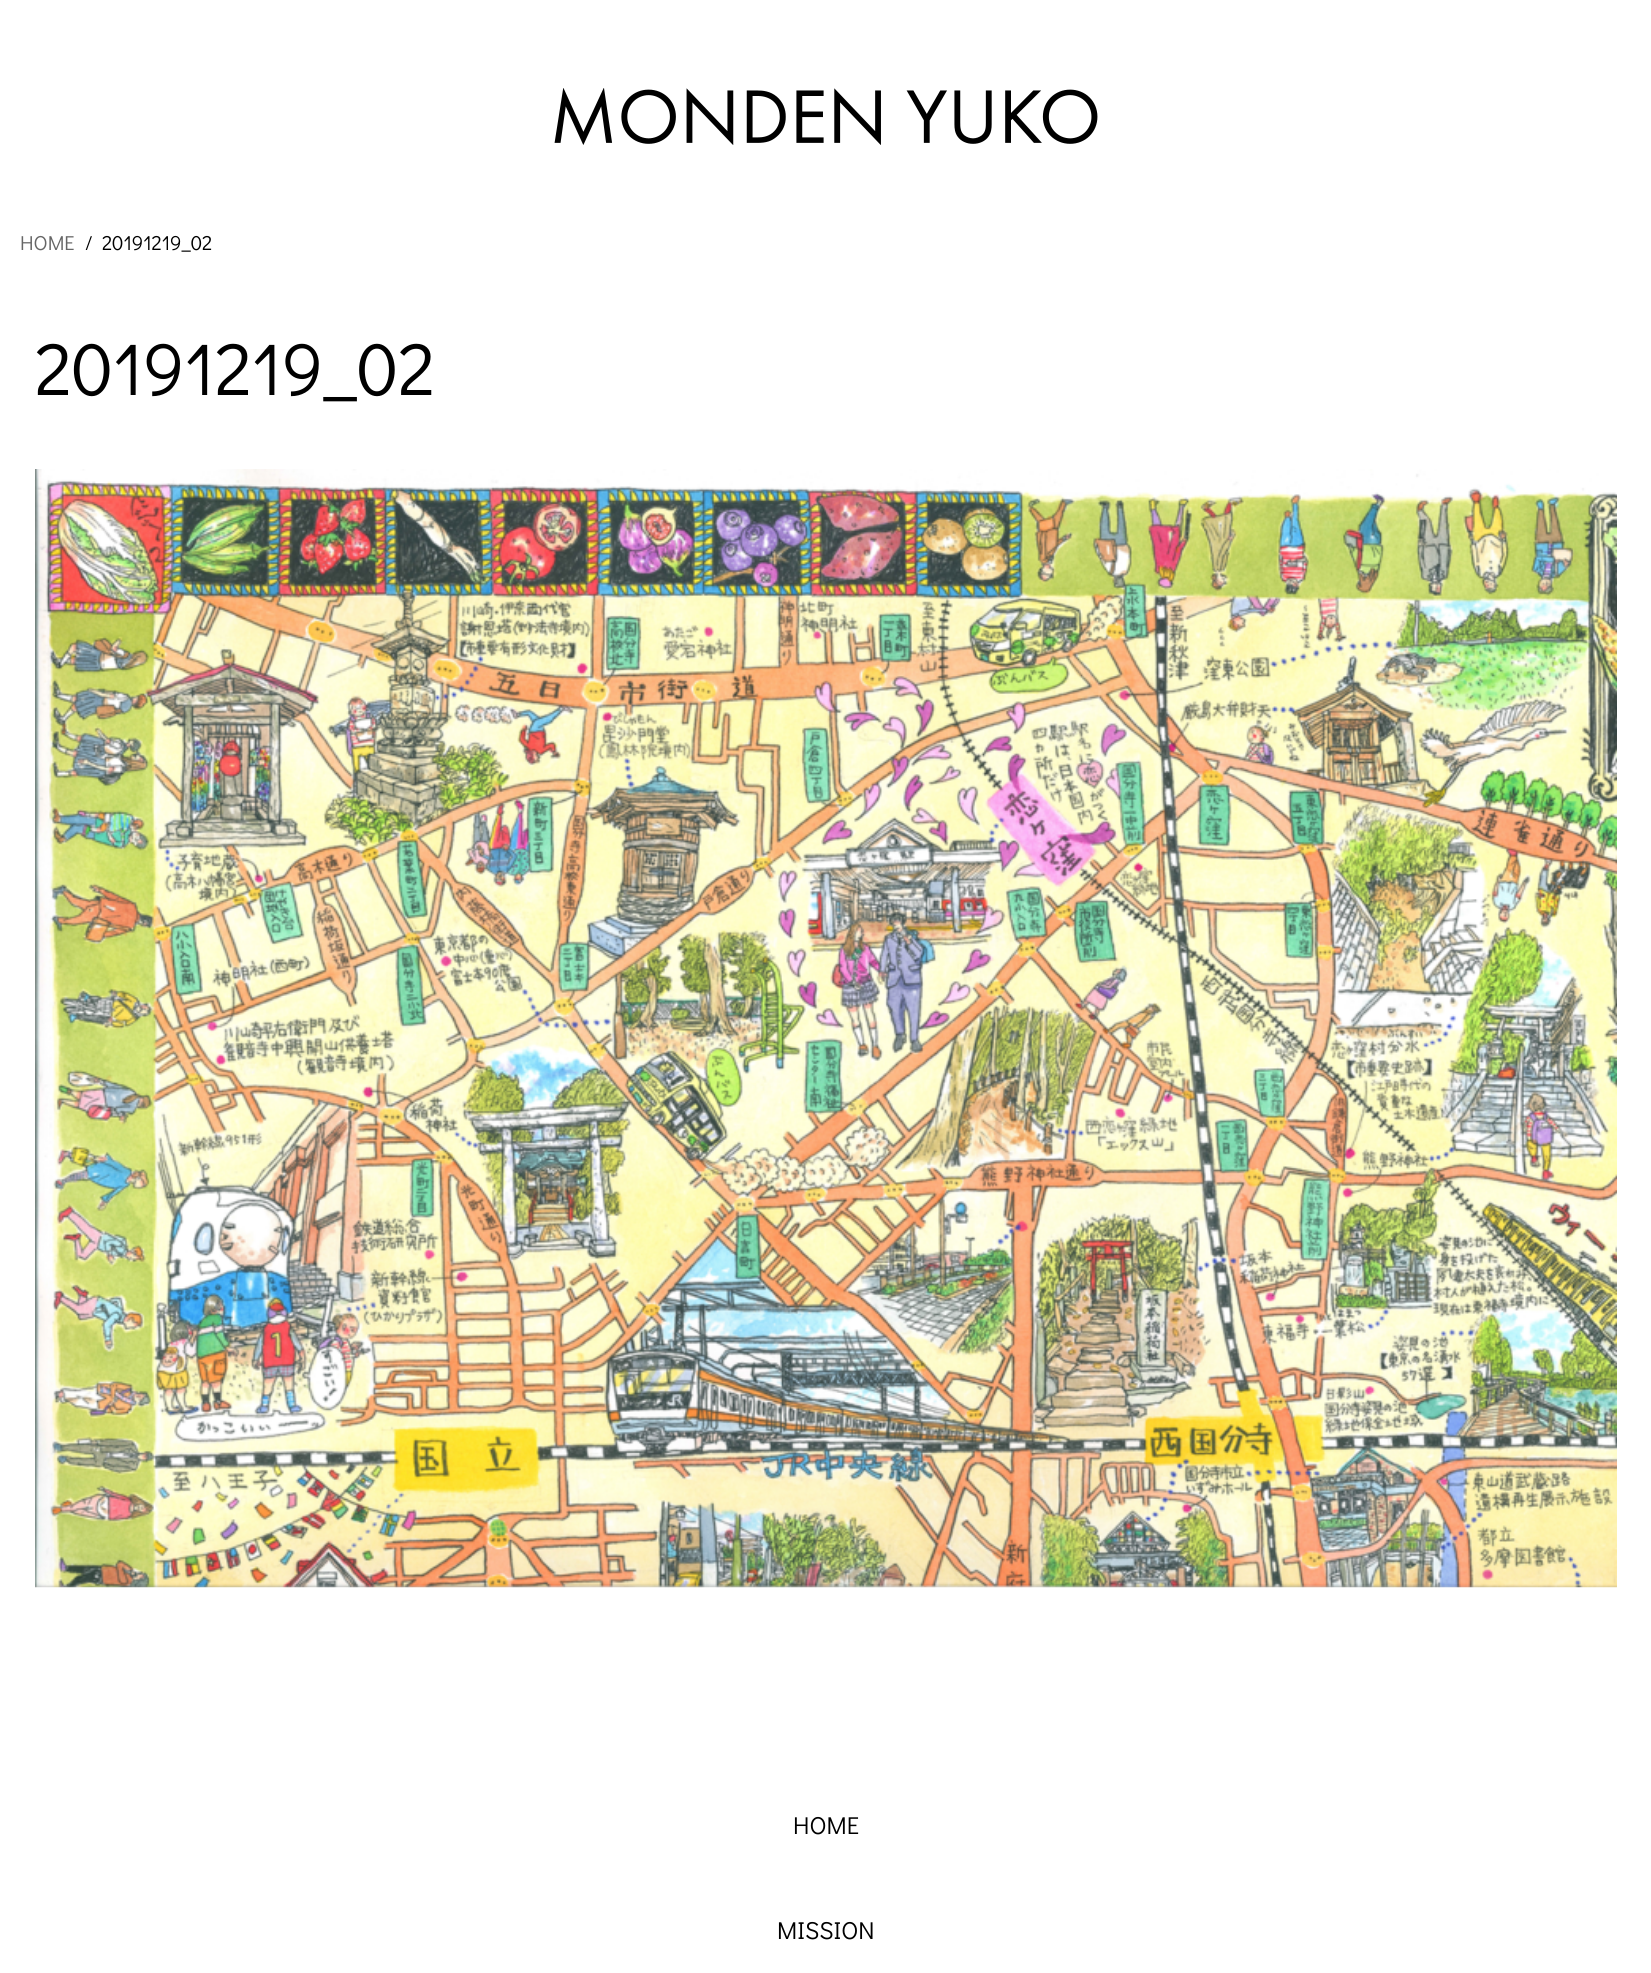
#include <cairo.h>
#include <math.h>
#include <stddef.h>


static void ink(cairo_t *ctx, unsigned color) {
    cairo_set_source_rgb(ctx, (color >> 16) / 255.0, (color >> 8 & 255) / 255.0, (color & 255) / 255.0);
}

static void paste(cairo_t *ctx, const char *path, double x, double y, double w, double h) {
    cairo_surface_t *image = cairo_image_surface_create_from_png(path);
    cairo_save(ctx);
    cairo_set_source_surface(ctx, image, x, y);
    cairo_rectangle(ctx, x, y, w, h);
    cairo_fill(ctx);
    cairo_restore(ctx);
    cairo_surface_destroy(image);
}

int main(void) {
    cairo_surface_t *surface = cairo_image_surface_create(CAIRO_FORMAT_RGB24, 1651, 1973);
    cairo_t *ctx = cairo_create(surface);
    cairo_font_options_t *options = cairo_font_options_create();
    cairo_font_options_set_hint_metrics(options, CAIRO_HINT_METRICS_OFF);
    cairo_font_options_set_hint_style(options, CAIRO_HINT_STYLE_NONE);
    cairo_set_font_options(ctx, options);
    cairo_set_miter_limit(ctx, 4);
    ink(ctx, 0xFFFFFF);
    cairo_paint(ctx);
    paste(ctx, "media/1.png", 554, 88, 544, 57);
    cairo_select_font_face(ctx, "Didact Gothic", CAIRO_FONT_SLANT_NORMAL, CAIRO_FONT_WEIGHT_NORMAL);
    cairo_set_font_size(ctx, 20.25);
    ink(ctx, 0x666666);
    cairo_move_to(ctx, 20, 250);
    cairo_show_text(ctx, "HOME");
    ink(ctx, 0x000000);
    cairo_move_to(ctx, 85, 250);
    cairo_show_text(ctx, "/");
    cairo_move_to(ctx, 102, 250);
    cairo_show_text(ctx, "20191219_02");
    cairo_set_font_size(ctx, 73.5);
    cairo_move_to(ctx, 35, 395);
    cairo_show_text(ctx, "20191219_02");
    paste(ctx, "media/2.png", 35, 469, 1582, 1119);
    cairo_set_font_size(ctx, 24.5);
    cairo_move_to(ctx, 793, 1834);
    cairo_show_text(ctx, "HOME");
    cairo_move_to(ctx, 777, 1939);
    cairo_show_text(ctx, "MISSION");
    cairo_surface_write_to_png(surface, "image.png");
    cairo_font_options_destroy(options);
    cairo_destroy(ctx);
    cairo_surface_destroy(surface);
    return 0;
}
